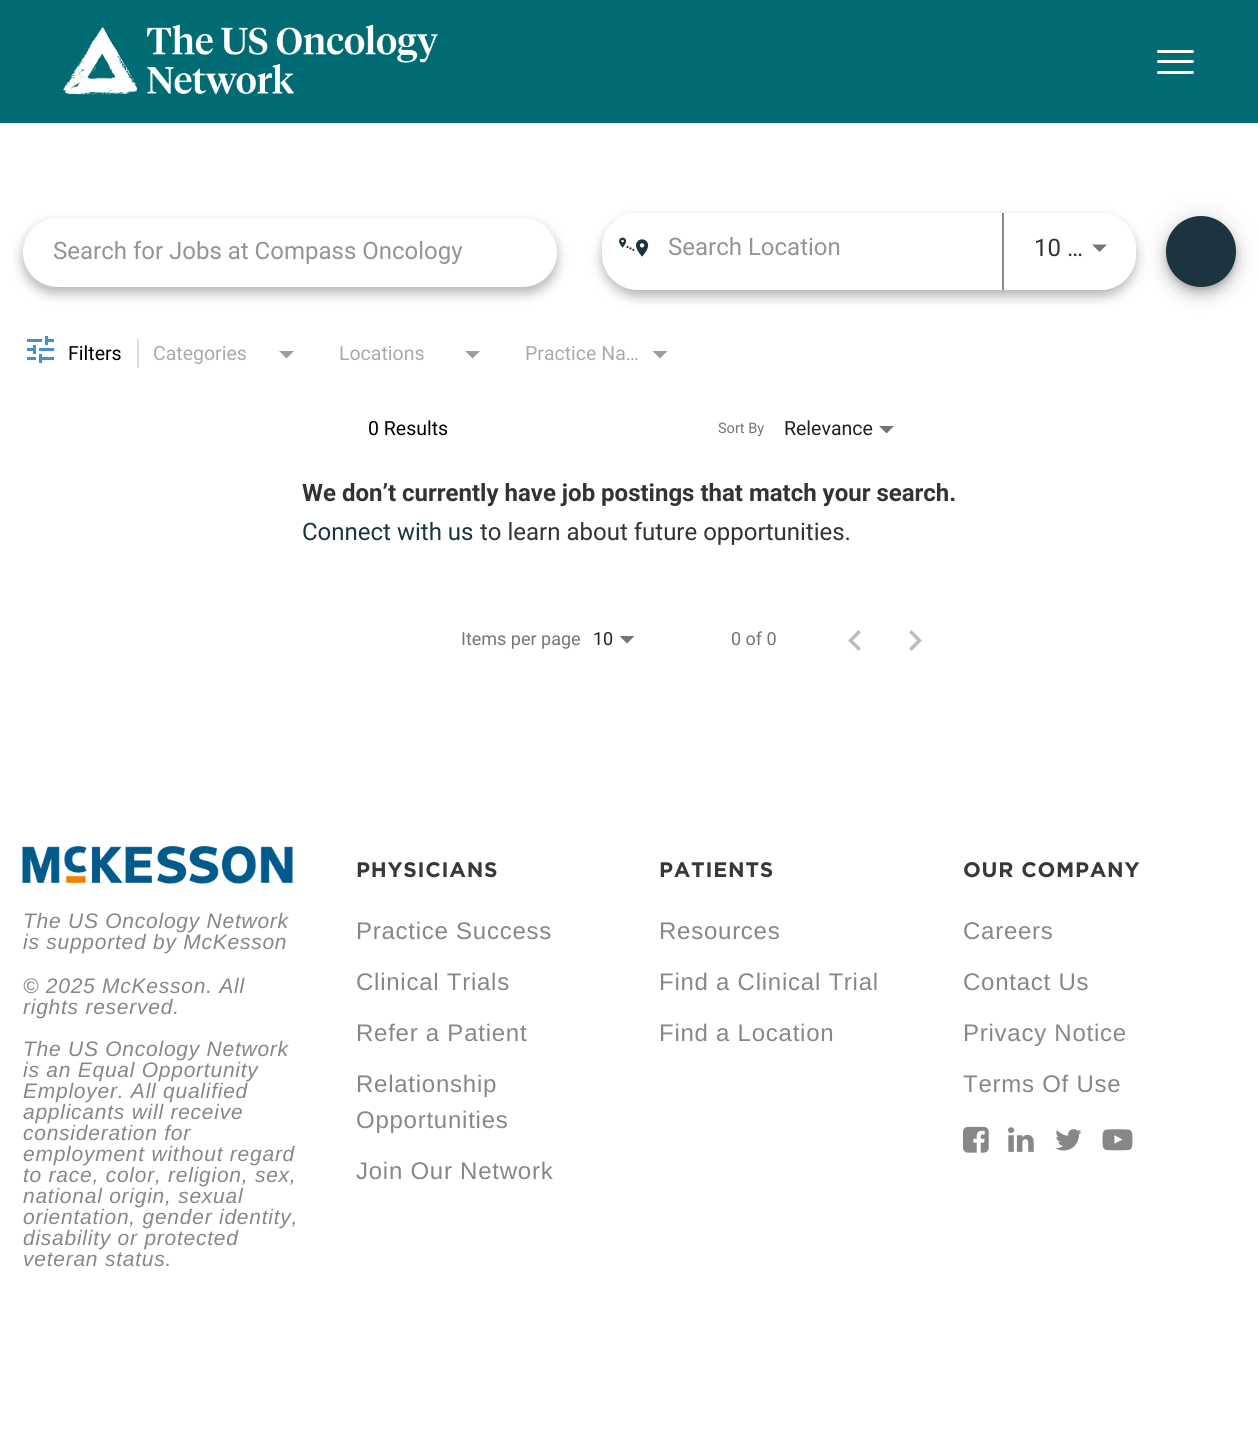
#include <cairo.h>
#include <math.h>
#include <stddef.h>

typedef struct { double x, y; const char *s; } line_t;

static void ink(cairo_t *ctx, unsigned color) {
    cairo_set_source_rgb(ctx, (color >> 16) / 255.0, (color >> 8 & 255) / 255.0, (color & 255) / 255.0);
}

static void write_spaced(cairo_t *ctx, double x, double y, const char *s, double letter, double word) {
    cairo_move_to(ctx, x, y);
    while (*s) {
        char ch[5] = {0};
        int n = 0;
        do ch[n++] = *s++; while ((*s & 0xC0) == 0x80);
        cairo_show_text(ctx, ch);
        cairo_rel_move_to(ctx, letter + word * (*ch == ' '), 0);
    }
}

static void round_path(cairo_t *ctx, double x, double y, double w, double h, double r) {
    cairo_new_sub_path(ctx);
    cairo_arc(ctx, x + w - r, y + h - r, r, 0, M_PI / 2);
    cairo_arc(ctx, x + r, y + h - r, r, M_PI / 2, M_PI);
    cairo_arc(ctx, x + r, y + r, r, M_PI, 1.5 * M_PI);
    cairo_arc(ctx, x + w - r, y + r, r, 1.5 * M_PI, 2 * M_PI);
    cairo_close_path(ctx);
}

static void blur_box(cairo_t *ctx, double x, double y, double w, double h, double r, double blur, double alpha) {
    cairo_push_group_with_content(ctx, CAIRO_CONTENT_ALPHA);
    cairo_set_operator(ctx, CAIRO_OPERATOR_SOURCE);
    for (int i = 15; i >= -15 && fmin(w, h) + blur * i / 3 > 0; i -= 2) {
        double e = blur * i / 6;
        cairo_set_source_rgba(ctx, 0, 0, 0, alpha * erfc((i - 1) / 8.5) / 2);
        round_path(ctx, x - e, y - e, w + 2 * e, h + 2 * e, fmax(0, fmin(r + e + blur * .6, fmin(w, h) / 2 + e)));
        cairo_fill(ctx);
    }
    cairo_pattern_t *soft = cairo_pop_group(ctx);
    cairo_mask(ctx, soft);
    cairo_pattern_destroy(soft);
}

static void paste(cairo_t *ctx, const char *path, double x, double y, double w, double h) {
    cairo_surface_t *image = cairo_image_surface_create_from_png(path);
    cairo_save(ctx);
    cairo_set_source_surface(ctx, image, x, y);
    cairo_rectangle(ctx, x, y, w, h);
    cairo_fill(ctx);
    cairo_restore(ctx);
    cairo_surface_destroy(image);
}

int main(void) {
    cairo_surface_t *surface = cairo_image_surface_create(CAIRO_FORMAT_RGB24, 1258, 1455);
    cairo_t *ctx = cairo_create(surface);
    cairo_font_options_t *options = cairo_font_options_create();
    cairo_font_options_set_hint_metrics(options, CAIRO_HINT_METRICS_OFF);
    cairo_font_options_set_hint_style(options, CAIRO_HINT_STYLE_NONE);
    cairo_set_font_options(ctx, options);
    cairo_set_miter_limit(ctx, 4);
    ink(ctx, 0xFFFFFF);
    cairo_paint(ctx);
    ink(ctx, 0x006B73);
    cairo_rectangle(ctx, 0, 0, 1258, 123);
    cairo_fill(ctx);
    paste(ctx, "media/1.png", 63, 24, 375, 71);
    ink(ctx, 0xFFFFFF);
    round_path(ctx, 1157, 50, 37, 3, 1.5);
    cairo_fill(ctx);
    round_path(ctx, 1157, 60, 37, 3, 1.5);
    cairo_fill(ctx);
    round_path(ctx, 1157, 71, 37, 3, 1.5);
    cairo_fill(ctx);
    ink(ctx, 0x000000);
    blur_box(ctx, 23, 224, 534, 69, 34.5, 6, 0.3);
    ink(ctx, 0xFFFFFF);
    round_path(ctx, 23, 218, 534, 69, 34.5);
    cairo_fill(ctx);
    cairo_select_font_face(ctx, "Roboto", CAIRO_FONT_SLANT_NORMAL, CAIRO_FONT_WEIGHT_NORMAL);
    cairo_set_font_size(ctx, 24);
    ink(ctx, 0x949494);
    cairo_move_to(ctx, 53, 259);
    cairo_show_text(ctx, "Search for Jobs at Compass Oncology");
    cairo_save(ctx);
    cairo_set_fill_rule(ctx, CAIRO_FILL_RULE_EVEN_ODD);
    cairo_new_path(ctx);
    cairo_move_to(ctx, 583, 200);
    cairo_line_to(ctx, 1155, 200);
    cairo_line_to(ctx, 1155, 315);
    cairo_line_to(ctx, 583, 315);
    cairo_close_path(ctx);
    cairo_move_to(ctx, 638, 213);
    cairo_line_to(ctx, 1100, 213);
    cairo_curve_to(ctx, 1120, 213, 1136, 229, 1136, 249);
    cairo_line_to(ctx, 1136, 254);
    cairo_curve_to(ctx, 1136, 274, 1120, 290, 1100, 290);
    cairo_line_to(ctx, 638, 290);
    cairo_curve_to(ctx, 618, 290, 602, 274, 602, 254);
    cairo_line_to(ctx, 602, 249);
    cairo_curve_to(ctx, 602, 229, 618, 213, 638, 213);
    cairo_close_path(ctx);
    cairo_clip(ctx);
    ink(ctx, 0x000000);
    blur_box(ctx, 602, 219, 534, 77, 36, 6, 0.3);
    cairo_restore(ctx);
    ink(ctx, 0xFFFFFF);
    cairo_new_path(ctx);
    cairo_move_to(ctx, 636.5, 213);
    cairo_line_to(ctx, 990, 213);
    cairo_line_to(ctx, 990, 282);
    cairo_line_to(ctx, 636.5, 282);
    cairo_curve_to(ctx, 617.5, 282, 602, 266.5, 602, 247.5);
    cairo_curve_to(ctx, 602, 228.5, 617.5, 213, 636.5, 213);
    cairo_close_path(ctx);
    cairo_fill(ctx);
    paste(ctx, "media/2.png", 619, 237, 30, 20);
    ink(ctx, 0x949494);
    cairo_move_to(ctx, 668, 255);
    cairo_show_text(ctx, "Search Location");
    ink(ctx, 0xFFFFFF);
    cairo_new_path(ctx);
    cairo_move_to(ctx, 1002, 213);
    cairo_line_to(ctx, 1100, 213);
    cairo_curve_to(ctx, 1120, 213, 1136, 229, 1136, 249);
    cairo_line_to(ctx, 1136, 254);
    cairo_curve_to(ctx, 1136, 274, 1120, 290, 1100, 290);
    cairo_line_to(ctx, 1002, 290);
    cairo_close_path(ctx);
    cairo_fill(ctx);
    ink(ctx, 0x888888);
    cairo_rectangle(ctx, 1002, 213, 2, 77);
    cairo_fill(ctx);
    ink(ctx, 0x333333);
    cairo_move_to(ctx, 1034, 256);
    cairo_show_text(ctx, "10 …");
    ink(ctx, 0x757575);
    cairo_new_path(ctx);
    cairo_move_to(ctx, 1092, 244.5);
    cairo_line_to(ctx, 1107, 244.5);
    cairo_line_to(ctx, 1099.5, 252);
    cairo_close_path(ctx);
    cairo_fill(ctx);
    ink(ctx, 0x000000);
    blur_box(ctx, 1166, 218, 70, 70, 35, 13.5, 0.12);
    blur_box(ctx, 1166, 225, 70, 71, 35, 7.5, 0.14);
    blur_box(ctx, 1167, 222, 68, 68, 34, 4, 0.2);
    ink(ctx, 0x1B3440);
    round_path(ctx, 1166, 216, 70, 71, 35);
    cairo_fill(ctx);
    paste(ctx, "media/3.png", 27, 336, 27, 27);
    ink(ctx, 0xDDDDDD);
    cairo_rectangle(ctx, 137, 339, 2, 29);
    cairo_fill(ctx);
    cairo_set_font_size(ctx, 19.5);
    ink(ctx, 0x000000);
    cairo_move_to(ctx, 68, 360);
    cairo_show_text(ctx, "Filters");
    ink(ctx, 0xAAAAAA);
    cairo_move_to(ctx, 153, 360);
    cairo_show_text(ctx, "Categories");
    ink(ctx, 0x9E9E9E);
    cairo_new_path(ctx);
    cairo_move_to(ctx, 279, 351);
    cairo_line_to(ctx, 294, 351);
    cairo_line_to(ctx, 286.5, 358.5);
    cairo_close_path(ctx);
    cairo_fill(ctx);
    ink(ctx, 0xAAAAAA);
    cairo_move_to(ctx, 339, 360);
    cairo_show_text(ctx, "Locations");
    ink(ctx, 0x9E9E9E);
    cairo_new_path(ctx);
    cairo_move_to(ctx, 465, 351);
    cairo_line_to(ctx, 480, 351);
    cairo_line_to(ctx, 472.5, 358.5);
    cairo_close_path(ctx);
    cairo_fill(ctx);
    ink(ctx, 0xAAAAAA);
    cairo_move_to(ctx, 525, 360);
    cairo_show_text(ctx, "Practice Na…");
    ink(ctx, 0x9E9E9E);
    cairo_new_path(ctx);
    cairo_move_to(ctx, 652.5, 351);
    cairo_line_to(ctx, 667.5, 351);
    cairo_line_to(ctx, 660, 358.5);
    cairo_close_path(ctx);
    cairo_fill(ctx);
    ink(ctx, 0x000000);
    cairo_move_to(ctx, 368, 435);
    cairo_show_text(ctx, "0 Results");
    cairo_set_font_size(ctx, 14.5);
    ink(ctx, 0x757575);
    cairo_move_to(ctx, 718, 433);
    cairo_show_text(ctx, "Sort By");
    cairo_set_font_size(ctx, 19.5);
    ink(ctx, 0x212121);
    cairo_move_to(ctx, 784, 435);
    cairo_show_text(ctx, "Relevance");
    ink(ctx, 0x757575);
    cairo_new_path(ctx);
    cairo_move_to(ctx, 879, 426);
    cairo_line_to(ctx, 894, 426);
    cairo_line_to(ctx, 886.5, 433.5);
    cairo_close_path(ctx);
    cairo_fill(ctx);
    cairo_select_font_face(ctx, "Roboto", CAIRO_FONT_SLANT_NORMAL, CAIRO_FONT_WEIGHT_BOLD);
    cairo_set_font_size(ctx, 24);
    ink(ctx, 0x333333);
    cairo_move_to(ctx, 302, 501);
    cairo_show_text(ctx, "We don’t currently have job postings that match your search.");
    cairo_select_font_face(ctx, "Roboto", CAIRO_FONT_SLANT_NORMAL, CAIRO_FONT_WEIGHT_NORMAL);
    ink(ctx, 0x1B3440);
    cairo_move_to(ctx, 302, 540);
    cairo_show_text(ctx, "Connect with us");
    ink(ctx, 0x333333);
    cairo_move_to(ctx, 480, 540);
    cairo_show_text(ctx, "to learn about future opportunities.");
    cairo_set_font_size(ctx, 18);
    ink(ctx, 0x757575);
    cairo_move_to(ctx, 461, 645);
    cairo_show_text(ctx, "Items per page");
    ink(ctx, 0x212121);
    cairo_move_to(ctx, 593, 645);
    cairo_show_text(ctx, "10");
    ink(ctx, 0x757575);
    cairo_new_path(ctx);
    cairo_move_to(ctx, 619.5, 636);
    cairo_line_to(ctx, 634.5, 636);
    cairo_line_to(ctx, 627, 643.5);
    cairo_close_path(ctx);
    cairo_fill(ctx);
    cairo_move_to(ctx, 731, 645);
    cairo_show_text(ctx, "0 of 0");
    ink(ctx, 0xBDBDBD);
    cairo_new_path(ctx);
    cairo_move_to(ctx, 861, 632.5);
    cairo_line_to(ctx, 858.5, 630);
    cairo_line_to(ctx, 848, 640.5);
    cairo_line_to(ctx, 858.5, 651);
    cairo_line_to(ctx, 861, 648.5);
    cairo_line_to(ctx, 853, 640.5);
    cairo_close_path(ctx);
    cairo_fill(ctx);
    cairo_new_path(ctx);
    cairo_move_to(ctx, 911.5, 630);
    cairo_line_to(ctx, 909, 632.5);
    cairo_line_to(ctx, 917, 640.5);
    cairo_line_to(ctx, 909, 648.5);
    cairo_line_to(ctx, 911.5, 651);
    cairo_line_to(ctx, 922, 640.5);
    cairo_close_path(ctx);
    cairo_fill(ctx);
    paste(ctx, "media/4.png", 22, 846, 271, 38);
    cairo_select_font_face(ctx, "Liberation Sans", CAIRO_FONT_SLANT_ITALIC, CAIRO_FONT_WEIGHT_NORMAL);
    cairo_set_font_size(ctx, 21);
    ink(ctx, 0x868786);
    {
        static const line_t items[] = {
            {23, 928, "The US Oncology Network"},
            {23, 949, "is supported by McKesson"},
            {23, 993, "© 2025 McKesson. All"},
            {23, 1014, "rights reserved."},
            {23, 1056, "The US Oncology Network"},
            {23, 1077, "is an Equal Opportunity"},
            {23, 1098, "Employer. All qualified"},
            {23, 1119, "applicants will receive"},
            {23, 1140, "consideration for"},
            {23, 1161, "employment without regard"},
            {23, 1182, "to race, color, religion, sex,"},
            {23, 1203, "national origin, sexual"},
            {23, 1224, "orientation, gender identity,"},
            {23, 1245, "disability or protected"},
            {23, 1266, "veteran status."},
        };
        for (size_t i = 0; i < sizeof items / sizeof *items; i++) {
            write_spaced(ctx, items[i].x, items[i].y, items[i].s, 0.75, 0);
        }
    }
    cairo_select_font_face(ctx, "Gotham", CAIRO_FONT_SLANT_NORMAL, CAIRO_FONT_WEIGHT_BOLD);
    ink(ctx, 0x373938);
    write_spaced(ctx, 356, 877, "PHYSICIANS", 0.75, 0);
    cairo_select_font_face(ctx, "Liberation Sans", CAIRO_FONT_SLANT_NORMAL, CAIRO_FONT_WEIGHT_NORMAL);
    cairo_set_font_size(ctx, 24);
    ink(ctx, 0x868786);
    {
        static const line_t items[] = {
            {356, 939, "Practice Success"},
            {356, 990, "Clinical Trials"},
            {356, 1041, "Refer a Patient"},
            {356, 1092, "Relationship"},
            {356, 1128, "Opportunities"},
            {356, 1179, "Join Our Network"},
        };
        for (size_t i = 0; i < sizeof items / sizeof *items; i++) {
            write_spaced(ctx, items[i].x, items[i].y, items[i].s, 0.75, 0);
        }
    }
    cairo_select_font_face(ctx, "Gotham", CAIRO_FONT_SLANT_NORMAL, CAIRO_FONT_WEIGHT_BOLD);
    cairo_set_font_size(ctx, 21);
    ink(ctx, 0x373938);
    write_spaced(ctx, 659, 877, "PATIENTS", 0.75, 0);
    cairo_select_font_face(ctx, "Liberation Sans", CAIRO_FONT_SLANT_NORMAL, CAIRO_FONT_WEIGHT_NORMAL);
    cairo_set_font_size(ctx, 24);
    ink(ctx, 0x868786);
    {
        static const line_t items[] = {
            {659, 939, "Resources"},
            {659, 990, "Find a Clinical Trial"},
            {659, 1041, "Find a Location"},
        };
        for (size_t i = 0; i < sizeof items / sizeof *items; i++) {
            write_spaced(ctx, items[i].x, items[i].y, items[i].s, 0.75, 0);
        }
    }
    cairo_select_font_face(ctx, "Gotham", CAIRO_FONT_SLANT_NORMAL, CAIRO_FONT_WEIGHT_BOLD);
    cairo_set_font_size(ctx, 21);
    ink(ctx, 0x373938);
    write_spaced(ctx, 963, 877, "OUR COMPANY", 0.75, 0);
    cairo_select_font_face(ctx, "Liberation Sans", CAIRO_FONT_SLANT_NORMAL, CAIRO_FONT_WEIGHT_NORMAL);
    cairo_set_font_size(ctx, 24);
    ink(ctx, 0x868786);
    {
        static const line_t items[] = {
            {963, 939, "Careers"},
            {963, 990, "Contact Us"},
            {963, 1041, "Privacy Notice"},
            {963, 1092, "Terms Of Use"},
        };
        for (size_t i = 0; i < sizeof items / sizeof *items; i++) {
            write_spaced(ctx, items[i].x, items[i].y, items[i].s, 0.75, 0);
        }
    }
    paste(ctx, "media/5.png", 963, 1126, 26, 27);
    paste(ctx, "media/6.png", 1008, 1127, 26, 25);
    paste(ctx, "media/7.png", 1055, 1129, 27, 22);
    paste(ctx, "media/8.png", 1102, 1129, 31, 22);
    cairo_surface_write_to_png(surface, "image.png");
    cairo_font_options_destroy(options);
    cairo_destroy(ctx);
    cairo_surface_destroy(surface);
    return 0;
}
